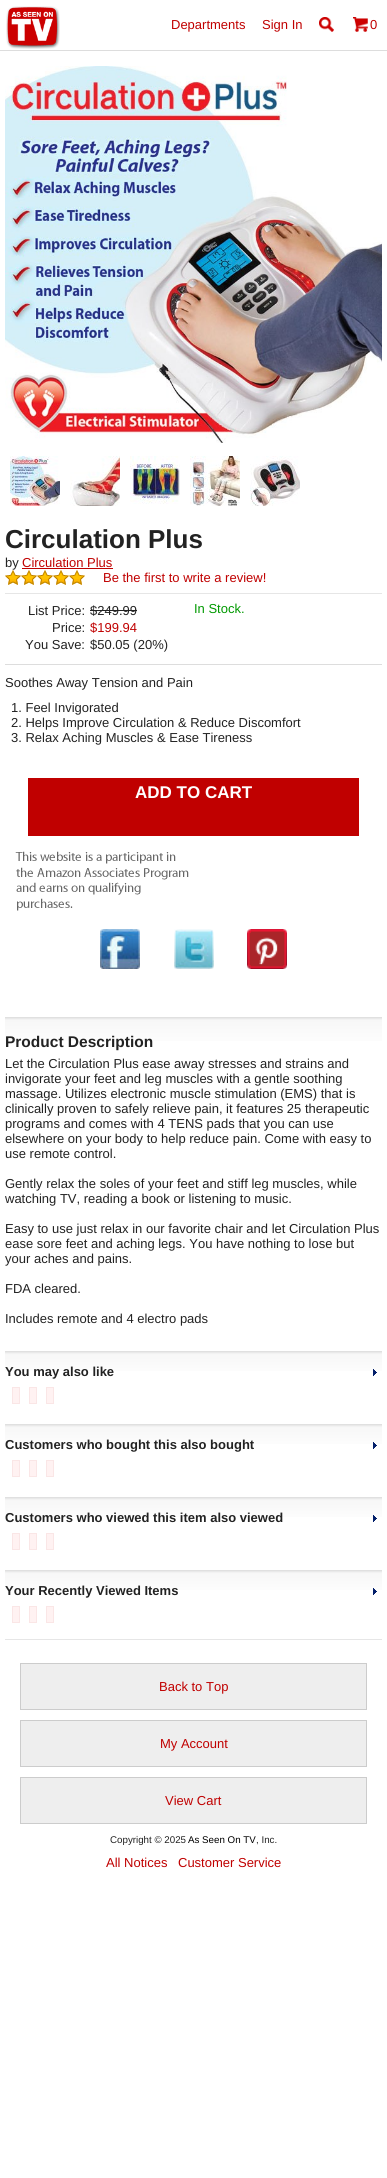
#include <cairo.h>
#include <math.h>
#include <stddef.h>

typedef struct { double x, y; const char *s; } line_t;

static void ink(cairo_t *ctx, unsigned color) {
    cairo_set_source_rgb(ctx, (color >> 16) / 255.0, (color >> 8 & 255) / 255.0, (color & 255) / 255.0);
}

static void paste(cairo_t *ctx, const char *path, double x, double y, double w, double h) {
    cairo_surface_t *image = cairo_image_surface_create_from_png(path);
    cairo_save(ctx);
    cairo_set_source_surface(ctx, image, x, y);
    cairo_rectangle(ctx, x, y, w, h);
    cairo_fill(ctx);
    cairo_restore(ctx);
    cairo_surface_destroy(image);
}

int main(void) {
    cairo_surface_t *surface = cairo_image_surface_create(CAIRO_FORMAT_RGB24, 387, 2178);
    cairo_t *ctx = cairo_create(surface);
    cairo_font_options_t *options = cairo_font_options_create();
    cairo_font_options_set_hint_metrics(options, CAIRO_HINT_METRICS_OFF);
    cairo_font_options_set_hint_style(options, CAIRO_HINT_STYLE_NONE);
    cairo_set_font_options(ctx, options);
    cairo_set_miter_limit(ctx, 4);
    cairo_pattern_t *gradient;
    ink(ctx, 0xFFFFFF);
    cairo_paint(ctx);
    ink(ctx, 0xDDDDDD);
    cairo_rectangle(ctx, 0, 50, 387, 1);
    cairo_fill(ctx);
    paste(ctx, "media/1.png", 6, 6, 54, 43);
    cairo_select_font_face(ctx, "Liberation Sans", CAIRO_FONT_SLANT_NORMAL, CAIRO_FONT_WEIGHT_NORMAL);
    cairo_set_font_size(ctx, 13);
    ink(ctx, 0xC00000);
    cairo_move_to(ctx, 171, 29);
    cairo_show_text(ctx, "Departments");
    cairo_move_to(ctx, 262, 29);
    cairo_show_text(ctx, "Sign In");
    paste(ctx, "media/2.png", 319, 17, 15, 15);
    paste(ctx, "media/3.png", 353, 17, 15, 15);
    cairo_move_to(ctx, 370, 29);
    cairo_show_text(ctx, "0");
    paste(ctx, "media/4.png", 5, 66, 377, 377);
    paste(ctx, "media/5.png", 10, 456, 50, 50);
    paste(ctx, "media/6.png", 70, 456, 50, 50);
    paste(ctx, "media/7.png", 130, 456, 50, 48);
    paste(ctx, "media/8.png", 190, 456, 50, 50);
    paste(ctx, "media/9.png", 250, 456, 50, 50);
    cairo_select_font_face(ctx, "Liberation Sans", CAIRO_FONT_SLANT_NORMAL, CAIRO_FONT_WEIGHT_BOLD);
    cairo_set_font_size(ctx, 26);
    ink(ctx, 0x222222);
    cairo_move_to(ctx, 5, 548);
    cairo_show_text(ctx, "Circulation Plus");
    cairo_select_font_face(ctx, "Liberation Sans", CAIRO_FONT_SLANT_NORMAL, CAIRO_FONT_WEIGHT_NORMAL);
    cairo_set_font_size(ctx, 13);
    cairo_move_to(ctx, 5, 567);
    cairo_show_text(ctx, "by");
    ink(ctx, 0xC00000);
    cairo_move_to(ctx, 22, 567);
    cairo_show_text(ctx, "Circulation Plus");
    cairo_rectangle(ctx, 22, 568, 91, 1);
    cairo_fill(ctx);
    paste(ctx, "media/10.png", 5, 570, 80, 15);
    cairo_move_to(ctx, 103, 582);
    cairo_show_text(ctx, "Be the first to write a review!");
    ink(ctx, 0xE6E6E6);
    cairo_rectangle(ctx, 5, 593, 377, 1);
    cairo_fill(ctx);
    ink(ctx, 0x222222);
    cairo_move_to(ctx, 28, 615);
    cairo_show_text(ctx, "List Price:");
    cairo_move_to(ctx, 90, 615);
    cairo_show_text(ctx, "$249.99");
    cairo_rectangle(ctx, 90, 610, 47, 1);
    cairo_fill(ctx);
    cairo_move_to(ctx, 52, 632);
    cairo_show_text(ctx, "Price:");
    ink(ctx, 0xC00000);
    cairo_move_to(ctx, 90, 632);
    cairo_show_text(ctx, "$199.94");
    ink(ctx, 0x222222);
    cairo_move_to(ctx, 25, 649);
    cairo_show_text(ctx, "You Save:");
    cairo_move_to(ctx, 90, 649);
    cairo_show_text(ctx, "$50.05 (20%)");
    ink(ctx, 0x009900);
    cairo_move_to(ctx, 194, 613);
    cairo_show_text(ctx, "In Stock.");
    ink(ctx, 0xDDDDDD);
    cairo_rectangle(ctx, 5, 664, 377, 1);
    cairo_fill(ctx);
    ink(ctx, 0x222222);
    {
        static const line_t items[] = {
            {5, 687, "Soothes Away Tension and Pain"},
            {11, 712, "1. Feel Invigorated"},
            {11, 727, "2. Helps Improve Circulation & Reduce Discomfort"},
            {11, 742, "3. Relax Aching Muscles & Ease Tireness"},
        };
        for (size_t i = 0; i < sizeof items / sizeof *items; i++) {
            cairo_move_to(ctx, items[i].x, items[i].y);
            cairo_show_text(ctx, items[i].s);
        }
    }
    ink(ctx, 0xC00000);
    cairo_rectangle(ctx, 28, 778, 331, 58);
    cairo_fill(ctx);
    cairo_select_font_face(ctx, "Liberation Sans", CAIRO_FONT_SLANT_NORMAL, CAIRO_FONT_WEIGHT_BOLD);
    cairo_set_font_size(ctx, 17);
    ink(ctx, 0xFFFFFF);
    cairo_move_to(ctx, 135, 798);
    cairo_show_text(ctx, "ADD TO CART");
    paste(ctx, "media/11.png", 15, 851, 174, 60);
    paste(ctx, "media/12.png", 100, 929, 40, 40);
    paste(ctx, "media/13.png", 174, 929, 40, 40);
    paste(ctx, "media/14.png", 247, 929, 40, 40);
    gradient = cairo_pattern_create_linear(194, 1017, 194, 1051);
    cairo_pattern_add_color_stop_rgba(gradient, 0, 0.859, 0.859, 0.859, 1);
    cairo_pattern_add_color_stop_rgba(gradient, 0.09, 0.969, 0.969, 0.969, 1);
    cairo_pattern_add_color_stop_rgba(gradient, 1, 1, 1, 1, 1);
    cairo_set_source(ctx, gradient);
    cairo_pattern_destroy(gradient);
    cairo_rectangle(ctx, 5, 1017, 377, 24);
    cairo_fill(ctx);
    cairo_set_font_size(ctx, 15.5);
    ink(ctx, 0x222222);
    cairo_move_to(ctx, 5, 1047);
    cairo_show_text(ctx, "Product Description");
    cairo_select_font_face(ctx, "Liberation Sans", CAIRO_FONT_SLANT_NORMAL, CAIRO_FONT_WEIGHT_NORMAL);
    cairo_set_font_size(ctx, 13);
    {
        static const line_t items[] = {
            {5, 1068, "Let the Circulation Plus ease away stresses and strains and"},
            {5, 1083, "invigorate your feet and leg muscles with a gentle soothing"},
            {5, 1098, "massage. Utilizes electronic muscle stimulation (EMS) that is"},
            {5, 1113, "clinically proven to safely relieve pain, it features 25 therapeutic"},
            {5, 1128, "programs and comes with 4 TENS pads that you can use"},
            {5, 1143, "elsewhere on your body to help reduce pain. Come with easy to"},
            {5, 1158, "use remote control."},
            {5, 1188, "Gently relax the soles of your feet and stiff leg muscles, while"},
            {5, 1203, "watching TV, reading a book or listening to music."},
            {5, 1233, "Easy to use just relax in our favorite chair and let Circulation Plus"},
            {5, 1248, "ease sore feet and aching legs. You have nothing to lose but"},
            {5, 1263, "your aches and pains."},
            {5, 1293, "FDA cleared."},
            {5, 1323, "Includes remote and 4 electro pads"},
        };
        for (size_t i = 0; i < sizeof items / sizeof *items; i++) {
            cairo_move_to(ctx, items[i].x, items[i].y);
            cairo_show_text(ctx, items[i].s);
        }
    }
    gradient = cairo_pattern_create_linear(194, 1351, 194, 1379);
    cairo_pattern_add_color_stop_rgba(gradient, 0, 0.859, 0.859, 0.859, 1);
    cairo_pattern_add_color_stop_rgba(gradient, 0.11, 0.969, 0.969, 0.969, 1);
    cairo_pattern_add_color_stop_rgba(gradient, 1, 1, 1, 1, 1);
    cairo_set_source(ctx, gradient);
    cairo_pattern_destroy(gradient);
    cairo_rectangle(ctx, 5, 1351, 377, 20);
    cairo_fill(ctx);
    cairo_select_font_face(ctx, "Liberation Sans", CAIRO_FONT_SLANT_NORMAL, CAIRO_FONT_WEIGHT_BOLD);
    ink(ctx, 0x222222);
    cairo_move_to(ctx, 5, 1376);
    cairo_show_text(ctx, "You may also like");
    paste(ctx, "media/15.png", 373, 1369, 4, 7);
    ink(ctx, 0xFFF2F2);
    cairo_rectangle(ctx, 12.5, 1387.5, 7, 16);
    cairo_fill_preserve(ctx);
    ink(ctx, 0xFAE6E6);
    cairo_set_line_width(ctx, 1);
    cairo_stroke(ctx);
    ink(ctx, 0xFFF2F2);
    cairo_rectangle(ctx, 29.5, 1387.5, 7, 16);
    cairo_fill_preserve(ctx);
    ink(ctx, 0xFAE6E6);
    cairo_stroke(ctx);
    ink(ctx, 0xFFF2F2);
    cairo_rectangle(ctx, 46.5, 1387.5, 7, 16);
    cairo_fill_preserve(ctx);
    ink(ctx, 0xFAE6E6);
    cairo_stroke(ctx);
    gradient = cairo_pattern_create_linear(194, 1424, 194, 1452);
    cairo_pattern_add_color_stop_rgba(gradient, 0, 0.859, 0.859, 0.859, 1);
    cairo_pattern_add_color_stop_rgba(gradient, 0.11, 0.969, 0.969, 0.969, 1);
    cairo_pattern_add_color_stop_rgba(gradient, 1, 1, 1, 1, 1);
    cairo_set_source(ctx, gradient);
    cairo_pattern_destroy(gradient);
    cairo_rectangle(ctx, 5, 1424, 377, 20);
    cairo_fill(ctx);
    ink(ctx, 0x222222);
    cairo_move_to(ctx, 5, 1449);
    cairo_show_text(ctx, "Customers who bought this also bought");
    paste(ctx, "media/15.png", 373, 1442, 4, 7);
    ink(ctx, 0xFFF2F2);
    cairo_rectangle(ctx, 12.5, 1460.5, 7, 16);
    cairo_fill_preserve(ctx);
    ink(ctx, 0xFAE6E6);
    cairo_stroke(ctx);
    ink(ctx, 0xFFF2F2);
    cairo_rectangle(ctx, 29.5, 1460.5, 7, 16);
    cairo_fill_preserve(ctx);
    ink(ctx, 0xFAE6E6);
    cairo_stroke(ctx);
    ink(ctx, 0xFFF2F2);
    cairo_rectangle(ctx, 46.5, 1460.5, 7, 16);
    cairo_fill_preserve(ctx);
    ink(ctx, 0xFAE6E6);
    cairo_stroke(ctx);
    gradient = cairo_pattern_create_linear(194, 1497, 194, 1525);
    cairo_pattern_add_color_stop_rgba(gradient, 0, 0.859, 0.859, 0.859, 1);
    cairo_pattern_add_color_stop_rgba(gradient, 0.11, 0.969, 0.969, 0.969, 1);
    cairo_pattern_add_color_stop_rgba(gradient, 1, 1, 1, 1, 1);
    cairo_set_source(ctx, gradient);
    cairo_pattern_destroy(gradient);
    cairo_rectangle(ctx, 5, 1497, 377, 20);
    cairo_fill(ctx);
    ink(ctx, 0x222222);
    cairo_move_to(ctx, 5, 1522);
    cairo_show_text(ctx, "Customers who viewed this item also viewed");
    paste(ctx, "media/15.png", 373, 1515, 4, 7);
    ink(ctx, 0xFFF2F2);
    cairo_rectangle(ctx, 12.5, 1533.5, 7, 16);
    cairo_fill_preserve(ctx);
    ink(ctx, 0xFAE6E6);
    cairo_stroke(ctx);
    ink(ctx, 0xFFF2F2);
    cairo_rectangle(ctx, 29.5, 1533.5, 7, 16);
    cairo_fill_preserve(ctx);
    ink(ctx, 0xFAE6E6);
    cairo_stroke(ctx);
    ink(ctx, 0xFFF2F2);
    cairo_rectangle(ctx, 46.5, 1533.5, 7, 16);
    cairo_fill_preserve(ctx);
    ink(ctx, 0xFAE6E6);
    cairo_stroke(ctx);
    gradient = cairo_pattern_create_linear(194, 1570, 194, 1598);
    cairo_pattern_add_color_stop_rgba(gradient, 0, 0.859, 0.859, 0.859, 1);
    cairo_pattern_add_color_stop_rgba(gradient, 0.11, 0.969, 0.969, 0.969, 1);
    cairo_pattern_add_color_stop_rgba(gradient, 1, 1, 1, 1, 1);
    cairo_set_source(ctx, gradient);
    cairo_pattern_destroy(gradient);
    cairo_rectangle(ctx, 5, 1570, 377, 20);
    cairo_fill(ctx);
    ink(ctx, 0x222222);
    cairo_move_to(ctx, 5, 1595);
    cairo_show_text(ctx, "Your Recently Viewed Items");
    paste(ctx, "media/15.png", 373, 1588, 4, 7);
    ink(ctx, 0xFFF2F2);
    cairo_rectangle(ctx, 12.5, 1606.5, 7, 16);
    cairo_fill_preserve(ctx);
    ink(ctx, 0xFAE6E6);
    cairo_stroke(ctx);
    ink(ctx, 0xFFF2F2);
    cairo_rectangle(ctx, 29.5, 1606.5, 7, 16);
    cairo_fill_preserve(ctx);
    ink(ctx, 0xFAE6E6);
    cairo_stroke(ctx);
    ink(ctx, 0xFFF2F2);
    cairo_rectangle(ctx, 46.5, 1606.5, 7, 16);
    cairo_fill_preserve(ctx);
    ink(ctx, 0xFAE6E6);
    cairo_stroke(ctx);
    ink(ctx, 0xE6E6E6);
    cairo_rectangle(ctx, 5, 1639, 377, 1);
    cairo_fill(ctx);
    ink(ctx, 0xEEEEEE);
    cairo_rectangle(ctx, 20.5, 1663.5, 346, 46);
    cairo_fill_preserve(ctx);
    ink(ctx, 0xCCCCCC);
    cairo_stroke(ctx);
    cairo_select_font_face(ctx, "Liberation Sans", CAIRO_FONT_SLANT_NORMAL, CAIRO_FONT_WEIGHT_NORMAL);
    ink(ctx, 0xC00000);
    cairo_move_to(ctx, 159, 1691);
    cairo_show_text(ctx, "Back to Top");
    ink(ctx, 0xEEEEEE);
    cairo_rectangle(ctx, 20.5, 1720.5, 346, 46);
    cairo_fill_preserve(ctx);
    ink(ctx, 0xCCCCCC);
    cairo_stroke(ctx);
    ink(ctx, 0xC00000);
    cairo_move_to(ctx, 160, 1748);
    cairo_show_text(ctx, "My Account");
    ink(ctx, 0xEEEEEE);
    cairo_rectangle(ctx, 20.5, 1777.5, 346, 46);
    cairo_fill_preserve(ctx);
    ink(ctx, 0xCCCCCC);
    cairo_stroke(ctx);
    ink(ctx, 0xC00000);
    cairo_move_to(ctx, 165, 1805);
    cairo_show_text(ctx, "View Cart");
    cairo_set_font_size(ctx, 9.75);
    ink(ctx, 0x222222);
    cairo_move_to(ctx, 110, 1843);
    cairo_show_text(ctx, "Copyright © 2025");
    ink(ctx, 0x000000);
    cairo_move_to(ctx, 188, 1843);
    cairo_show_text(ctx, "As Seen On TV");
    ink(ctx, 0x222222);
    cairo_move_to(ctx, 256, 1843);
    cairo_show_text(ctx, ", Inc.");
    cairo_set_font_size(ctx, 13);
    ink(ctx, 0xC00000);
    cairo_move_to(ctx, 106, 1867);
    cairo_show_text(ctx, "All Notices");
    cairo_move_to(ctx, 178, 1867);
    cairo_show_text(ctx, "Customer Service");
    cairo_surface_write_to_png(surface, "image.png");
    cairo_font_options_destroy(options);
    cairo_destroy(ctx);
    cairo_surface_destroy(surface);
    return 0;
}
